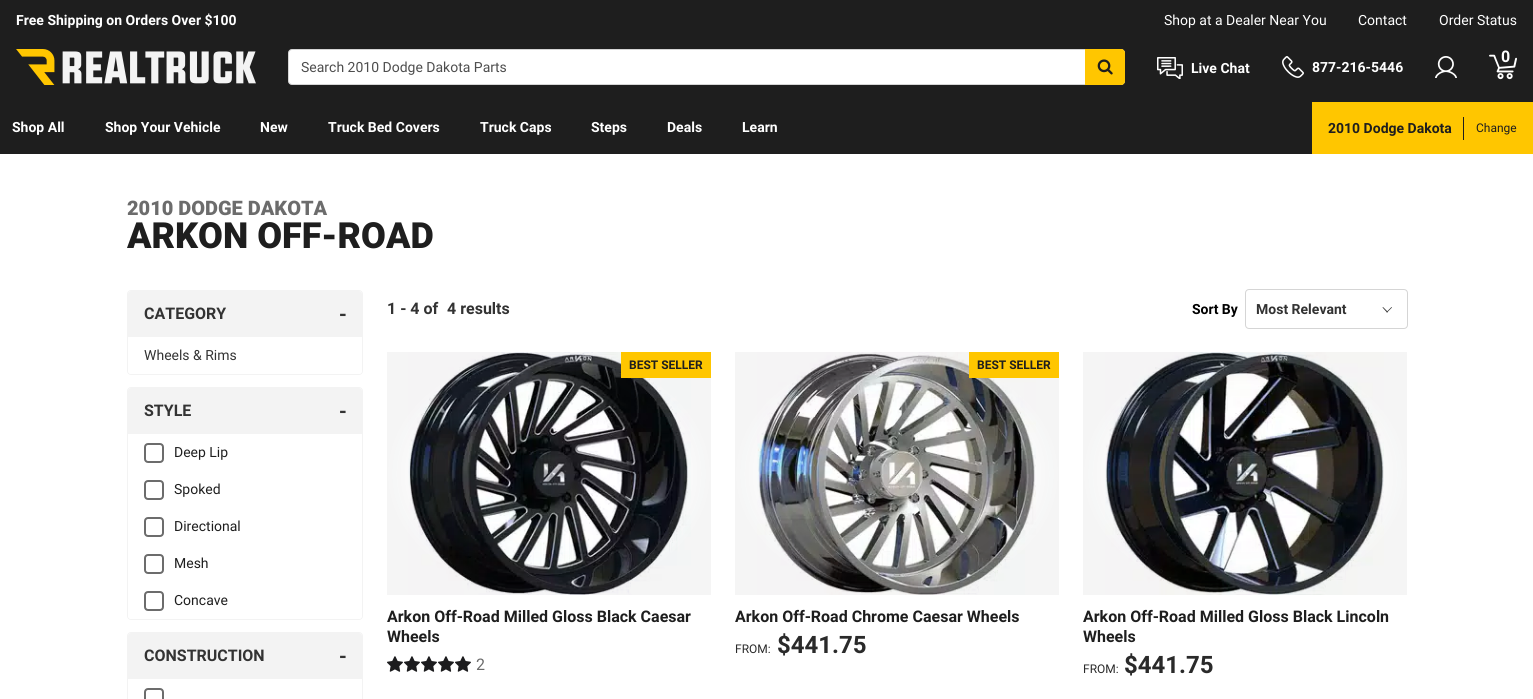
#include <cairo.h>
#include <math.h>
#include <stddef.h>

typedef struct { double x, y; const char *s; } line_t;

static void ink(cairo_t *ctx, unsigned color) {
    cairo_set_source_rgb(ctx, (color >> 16) / 255.0, (color >> 8 & 255) / 255.0, (color & 255) / 255.0);
}

static void round_path(cairo_t *ctx, double x, double y, double w, double h, double r) {
    cairo_new_sub_path(ctx);
    cairo_arc(ctx, x + w - r, y + h - r, r, 0, M_PI / 2);
    cairo_arc(ctx, x + r, y + h - r, r, M_PI / 2, M_PI);
    cairo_arc(ctx, x + r, y + r, r, M_PI, 1.5 * M_PI);
    cairo_arc(ctx, x + w - r, y + r, r, 1.5 * M_PI, 2 * M_PI);
    cairo_close_path(ctx);
}

static void paste(cairo_t *ctx, const char *path, double x, double y, double w, double h) {
    cairo_surface_t *image = cairo_image_surface_create_from_png(path);
    cairo_save(ctx);
    cairo_set_source_surface(ctx, image, x, y);
    cairo_rectangle(ctx, x, y, w, h);
    cairo_fill(ctx);
    cairo_restore(ctx);
    cairo_surface_destroy(image);
}

int main(void) {
    cairo_surface_t *surface = cairo_image_surface_create(CAIRO_FORMAT_RGB24, 1533, 699);
    cairo_t *ctx = cairo_create(surface);
    cairo_font_options_t *options = cairo_font_options_create();
    cairo_font_options_set_hint_metrics(options, CAIRO_HINT_METRICS_OFF);
    cairo_font_options_set_hint_style(options, CAIRO_HINT_STYLE_NONE);
    cairo_set_font_options(ctx, options);
    cairo_set_miter_limit(ctx, 4);
    cairo_pattern_t *gradient;
    ink(ctx, 0xFFFFFF);
    cairo_paint(ctx);
    ink(ctx, 0x1E1E1E);
    cairo_rectangle(ctx, 0, 0, 1533, 102);
    cairo_fill(ctx);
    cairo_select_font_face(ctx, "Roboto", CAIRO_FONT_SLANT_NORMAL, CAIRO_FONT_WEIGHT_BOLD);
    cairo_set_font_size(ctx, 14);
    ink(ctx, 0xFFFFFF);
    cairo_move_to(ctx, 16, 25);
    cairo_show_text(ctx, "Free Shipping on Orders Over $100");
    cairo_select_font_face(ctx, "Roboto", CAIRO_FONT_SLANT_NORMAL, CAIRO_FONT_WEIGHT_NORMAL);
    {
        static const line_t items[] = {
            {1164, 25, "Shop at a Dealer Near You"},
            {1358, 25, "Contact"},
            {1439, 25, "Order Status"},
        };
        for (size_t i = 0; i < sizeof items / sizeof *items; i++) {
            cairo_move_to(ctx, items[i].x, items[i].y);
            cairo_show_text(ctx, items[i].s);
        }
    }
    paste(ctx, "media/1.png", 16, 49, 240, 36);
    round_path(ctx, 288.5, 49.5, 836, 35, 3.5);
    cairo_fill_preserve(ctx);
    ink(ctx, 0xD5D5D5);
    cairo_set_line_width(ctx, 1);
    cairo_stroke(ctx);
    ink(ctx, 0x4D4D4D);
    cairo_move_to(ctx, 301, 72);
    cairo_show_text(ctx, "Search 2010 Dodge Dakota Parts");
    ink(ctx, 0xFFC600);
    cairo_new_path(ctx);
    cairo_move_to(ctx, 1085.5, 49.5);
    cairo_line_to(ctx, 1121, 49.5);
    cairo_curve_to(ctx, 1123, 49.5, 1124.5, 51, 1124.5, 53);
    cairo_line_to(ctx, 1124.5, 81);
    cairo_curve_to(ctx, 1124.5, 83, 1123, 84.5, 1121, 84.5);
    cairo_line_to(ctx, 1085.5, 84.5);
    cairo_close_path(ctx);
    cairo_fill_preserve(ctx);
    cairo_stroke(ctx);
    paste(ctx, "media/2.png", 1097, 59, 16, 16);
    paste(ctx, "media/3.png", 1157, 57, 26, 22);
    cairo_select_font_face(ctx, "Roboto", CAIRO_FONT_SLANT_NORMAL, CAIRO_FONT_WEIGHT_BOLD);
    ink(ctx, 0xFFFFFF);
    cairo_move_to(ctx, 1191, 73);
    cairo_show_text(ctx, "Live Chat");
    paste(ctx, "media/4.png", 1282, 56, 22, 22);
    cairo_move_to(ctx, 1312, 72);
    cairo_show_text(ctx, "877-216-5446");
    paste(ctx, "media/5.png", 1435, 56, 22, 22);
    paste(ctx, "media/6.png", 1489, 54, 28, 26);
    cairo_set_font_size(ctx, 16);
    cairo_move_to(ctx, 1501, 62);
    cairo_show_text(ctx, "0");
    ink(ctx, 0x1E1E1E);
    cairo_rectangle(ctx, 0, 102, 1312, 52);
    cairo_fill(ctx);
    cairo_set_font_size(ctx, 14);
    ink(ctx, 0xFFFFFF);
    {
        static const line_t items[] = {
            {12, 132, "Shop All"},
            {105, 132, "Shop Your Vehicle"},
            {260, 132, "New"},
            {328, 132, "Truck Bed Covers"},
            {480, 132, "Truck Caps"},
            {591, 132, "Steps"},
            {667, 132, "Deals"},
            {742, 132, "Learn"},
        };
        for (size_t i = 0; i < sizeof items / sizeof *items; i++) {
            cairo_move_to(ctx, items[i].x, items[i].y);
            cairo_show_text(ctx, items[i].s);
        }
    }
    ink(ctx, 0xFFC600);
    cairo_rectangle(ctx, 1312, 102, 221, 52);
    cairo_fill(ctx);
    ink(ctx, 0x1E1E1E);
    cairo_move_to(ctx, 1328, 133);
    cairo_show_text(ctx, "2010 Dodge Dakota");
    cairo_rectangle(ctx, 1463, 117, 1, 23);
    cairo_fill(ctx);
    cairo_select_font_face(ctx, "Roboto", CAIRO_FONT_SLANT_NORMAL, CAIRO_FONT_WEIGHT_NORMAL);
    cairo_set_font_size(ctx, 12);
    cairo_move_to(ctx, 1476, 132);
    cairo_show_text(ctx, "Change");
    cairo_select_font_face(ctx, "Roboto Black", CAIRO_FONT_SLANT_NORMAL, CAIRO_FONT_WEIGHT_NORMAL);
    cairo_set_font_size(ctx, 20);
    ink(ctx, 0x6C6C6C);
    cairo_move_to(ctx, 127, 215);
    cairo_show_text(ctx, "2010 DODGE DAKOTA");
    cairo_set_font_size(ctx, 36);
    ink(ctx, 0x1E1E1E);
    cairo_move_to(ctx, 127, 248);
    cairo_show_text(ctx, "ARKON OFF-ROAD");
    round_path(ctx, 127.5, 290.5, 235, 84, 3.5);
    ink(ctx, 0xF3F3F3);
    cairo_stroke(ctx);
    cairo_new_path(ctx);
    cairo_move_to(ctx, 131, 291);
    cairo_line_to(ctx, 359, 291);
    cairo_curve_to(ctx, 360.5, 291, 362, 292.5, 362, 294);
    cairo_line_to(ctx, 362, 337);
    cairo_line_to(ctx, 128, 337);
    cairo_line_to(ctx, 128, 294);
    cairo_curve_to(ctx, 128, 292.5, 129.5, 291, 131, 291);
    cairo_close_path(ctx);
    cairo_fill(ctx);
    cairo_select_font_face(ctx, "Roboto", CAIRO_FONT_SLANT_NORMAL, CAIRO_FONT_WEIGHT_BOLD);
    cairo_set_font_size(ctx, 16);
    ink(ctx, 0x333333);
    cairo_move_to(ctx, 144, 319);
    cairo_show_text(ctx, "CATEGORY");
    cairo_set_font_size(ctx, 20);
    cairo_move_to(ctx, 339, 321);
    cairo_show_text(ctx, "-");
    ink(ctx, 0xFFFFFF);
    cairo_new_path(ctx);
    cairo_move_to(ctx, 128, 337);
    cairo_line_to(ctx, 362, 337);
    cairo_line_to(ctx, 362, 371);
    cairo_curve_to(ctx, 362, 372.5, 360.5, 374, 359, 374);
    cairo_line_to(ctx, 131, 374);
    cairo_curve_to(ctx, 129.5, 374, 128, 372.5, 128, 371);
    cairo_close_path(ctx);
    cairo_fill(ctx);
    cairo_select_font_face(ctx, "Roboto", CAIRO_FONT_SLANT_NORMAL, CAIRO_FONT_WEIGHT_NORMAL);
    cairo_set_font_size(ctx, 14);
    ink(ctx, 0x333333);
    cairo_move_to(ctx, 144, 360);
    cairo_show_text(ctx, "Wheels & Rims");
    round_path(ctx, 127.5, 387.5, 235, 232, 3.5);
    ink(ctx, 0xF3F3F3);
    cairo_stroke(ctx);
    cairo_new_path(ctx);
    cairo_move_to(ctx, 131, 388);
    cairo_line_to(ctx, 359, 388);
    cairo_curve_to(ctx, 360.5, 388, 362, 389.5, 362, 391);
    cairo_line_to(ctx, 362, 434);
    cairo_line_to(ctx, 128, 434);
    cairo_line_to(ctx, 128, 391);
    cairo_curve_to(ctx, 128, 389.5, 129.5, 388, 131, 388);
    cairo_close_path(ctx);
    cairo_fill(ctx);
    cairo_select_font_face(ctx, "Roboto", CAIRO_FONT_SLANT_NORMAL, CAIRO_FONT_WEIGHT_BOLD);
    cairo_set_font_size(ctx, 16);
    ink(ctx, 0x333333);
    cairo_move_to(ctx, 144, 416);
    cairo_show_text(ctx, "STYLE");
    cairo_set_font_size(ctx, 20);
    cairo_move_to(ctx, 339, 418);
    cairo_show_text(ctx, "-");
    ink(ctx, 0xFFFFFF);
    cairo_new_path(ctx);
    cairo_move_to(ctx, 128, 434);
    cairo_line_to(ctx, 362, 434);
    cairo_line_to(ctx, 362, 616);
    cairo_curve_to(ctx, 362, 617.5, 360.5, 619, 359, 619);
    cairo_line_to(ctx, 131, 619);
    cairo_curve_to(ctx, 129.5, 619, 128, 617.5, 128, 616);
    cairo_close_path(ctx);
    cairo_fill(ctx);
    round_path(ctx, 145, 444, 18, 18, 3);
    ink(ctx, 0x6C6C6C);
    cairo_set_line_width(ctx, 2);
    cairo_stroke(ctx);
    cairo_select_font_face(ctx, "Roboto", CAIRO_FONT_SLANT_NORMAL, CAIRO_FONT_WEIGHT_NORMAL);
    cairo_set_font_size(ctx, 14);
    ink(ctx, 0x1E1E1E);
    cairo_move_to(ctx, 174, 457);
    cairo_show_text(ctx, "Deep Lip");
    round_path(ctx, 145, 481, 18, 18, 3);
    ink(ctx, 0x6C6C6C);
    cairo_stroke(ctx);
    ink(ctx, 0x1E1E1E);
    cairo_move_to(ctx, 174, 494);
    cairo_show_text(ctx, "Spoked");
    round_path(ctx, 145, 518, 18, 18, 3);
    ink(ctx, 0x6C6C6C);
    cairo_stroke(ctx);
    ink(ctx, 0x1E1E1E);
    cairo_move_to(ctx, 174, 531);
    cairo_show_text(ctx, "Directional");
    round_path(ctx, 145, 555, 18, 18, 3);
    ink(ctx, 0x6C6C6C);
    cairo_stroke(ctx);
    ink(ctx, 0x1E1E1E);
    cairo_move_to(ctx, 174, 568);
    cairo_show_text(ctx, "Mesh");
    round_path(ctx, 145, 592, 18, 18, 3);
    ink(ctx, 0x6C6C6C);
    cairo_stroke(ctx);
    ink(ctx, 0x1E1E1E);
    cairo_move_to(ctx, 174, 605);
    cairo_show_text(ctx, "Concave");
    round_path(ctx, 127.5, 632.5, 235, 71, 3.5);
    ink(ctx, 0xF3F3F3);
    cairo_set_line_width(ctx, 1);
    cairo_stroke(ctx);
    cairo_new_path(ctx);
    cairo_move_to(ctx, 131, 633);
    cairo_line_to(ctx, 359, 633);
    cairo_curve_to(ctx, 360.5, 633, 362, 634.5, 362, 636);
    cairo_line_to(ctx, 362, 679);
    cairo_line_to(ctx, 128, 679);
    cairo_line_to(ctx, 128, 636);
    cairo_curve_to(ctx, 128, 634.5, 129.5, 633, 131, 633);
    cairo_close_path(ctx);
    cairo_fill(ctx);
    cairo_select_font_face(ctx, "Roboto", CAIRO_FONT_SLANT_NORMAL, CAIRO_FONT_WEIGHT_BOLD);
    cairo_set_font_size(ctx, 16);
    ink(ctx, 0x333333);
    cairo_move_to(ctx, 144, 661);
    cairo_show_text(ctx, "CONSTRUCTION");
    cairo_set_font_size(ctx, 20);
    cairo_move_to(ctx, 339, 663);
    cairo_show_text(ctx, "-");
    round_path(ctx, 145, 689, 18, 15, 3);
    ink(ctx, 0x6C6C6C);
    cairo_set_line_width(ctx, 2);
    cairo_stroke(ctx);
    cairo_set_font_size(ctx, 16);
    ink(ctx, 0x333333);
    cairo_move_to(ctx, 387, 314);
    cairo_show_text(ctx, "1 - 4 of");
    cairo_move_to(ctx, 447, 314);
    cairo_show_text(ctx, "4 results");
    cairo_set_font_size(ctx, 14);
    ink(ctx, 0x000000);
    cairo_move_to(ctx, 1192, 314);
    cairo_show_text(ctx, "Sort By");
    round_path(ctx, 1245.5, 289.5, 162, 39, 3.5);
    ink(ctx, 0xD5D5D5);
    cairo_set_line_width(ctx, 1);
    cairo_stroke(ctx);
    ink(ctx, 0x333333);
    cairo_move_to(ctx, 1256, 314);
    cairo_show_text(ctx, "Most Relevant");
    cairo_new_path(ctx);
    cairo_move_to(ctx, 1386.5, 312);
    cairo_line_to(ctx, 1391.5, 307);
    cairo_line_to(ctx, 1392, 307.5);
    cairo_line_to(ctx, 1387, 312.5);
    cairo_close_path(ctx);
    cairo_fill(ctx);
    cairo_new_path(ctx);
    cairo_move_to(ctx, 1382.5, 307.5);
    cairo_line_to(ctx, 1383, 307);
    cairo_line_to(ctx, 1388, 312);
    cairo_line_to(ctx, 1387, 312.5);
    cairo_close_path(ctx);
    cairo_fill(ctx);
    paste(ctx, "media/7.png", 408, 352, 283, 243);
    gradient = cairo_pattern_create_radial(0, 0, 0, 0, 0, 1);
    cairo_pattern_set_matrix(gradient, &(cairo_matrix_t){1.0 / 162, 0, 0, 1.0 / 122, -1.0 * 549 / 162, -1.0 * 474 / 122});
    cairo_pattern_add_color_stop_rgba(gradient, 0.5, 0.216, 0.243, 0.243, 0);
    cairo_pattern_add_color_stop_rgba(gradient, 0.74, 0.216, 0.243, 0.243, 0.01);
    cairo_pattern_add_color_stop_rgba(gradient, 1, 0.216, 0.243, 0.243, 0.05);
    cairo_set_source(ctx, gradient);
    cairo_pattern_destroy(gradient);
    cairo_rectangle(ctx, 387, 352, 324, 243);
    cairo_fill(ctx);
    ink(ctx, 0xFFC600);
    cairo_rectangle(ctx, 621, 352, 90, 26);
    cairo_fill(ctx);
    cairo_set_font_size(ctx, 12);
    ink(ctx, 0x1E1E1E);
    cairo_move_to(ctx, 629, 369);
    cairo_show_text(ctx, "BEST SELLER");
    cairo_set_font_size(ctx, 16);
    cairo_move_to(ctx, 387, 622);
    cairo_show_text(ctx, "Arkon Off-Road Milled Gloss Black Caesar");
    cairo_move_to(ctx, 387, 642);
    cairo_show_text(ctx, "Wheels");
    paste(ctx, "media/8.png", 387, 656, 16, 16);
    paste(ctx, "media/8.png", 404, 656, 16, 16);
    paste(ctx, "media/8.png", 421, 656, 16, 16);
    paste(ctx, "media/8.png", 438, 656, 16, 16);
    paste(ctx, "media/8.png", 455, 656, 16, 16);
    cairo_select_font_face(ctx, "Roboto", CAIRO_FONT_SLANT_NORMAL, CAIRO_FONT_WEIGHT_NORMAL);
    ink(ctx, 0x6C6C6C);
    cairo_move_to(ctx, 476, 670);
    cairo_show_text(ctx, "2");
    paste(ctx, "media/9.png", 757, 352, 279, 243);
    gradient = cairo_pattern_create_radial(0, 0, 0, 0, 0, 1);
    cairo_pattern_set_matrix(gradient, &(cairo_matrix_t){1.0 / 162, 0, 0, 1.0 / 122, -1.0 * 897 / 162, -1.0 * 474 / 122});
    cairo_pattern_add_color_stop_rgba(gradient, 0.5, 0.216, 0.243, 0.243, 0);
    cairo_pattern_add_color_stop_rgba(gradient, 0.74, 0.216, 0.243, 0.243, 0.01);
    cairo_pattern_add_color_stop_rgba(gradient, 1, 0.216, 0.243, 0.243, 0.05);
    cairo_set_source(ctx, gradient);
    cairo_pattern_destroy(gradient);
    cairo_rectangle(ctx, 735, 352, 324, 243);
    cairo_fill(ctx);
    ink(ctx, 0xFFC600);
    cairo_rectangle(ctx, 969, 352, 90, 26);
    cairo_fill(ctx);
    cairo_select_font_face(ctx, "Roboto", CAIRO_FONT_SLANT_NORMAL, CAIRO_FONT_WEIGHT_BOLD);
    cairo_set_font_size(ctx, 12);
    ink(ctx, 0x1E1E1E);
    cairo_move_to(ctx, 977, 369);
    cairo_show_text(ctx, "BEST SELLER");
    cairo_set_font_size(ctx, 16);
    cairo_move_to(ctx, 735, 622);
    cairo_show_text(ctx, "Arkon Off-Road Chrome Caesar Wheels");
    cairo_select_font_face(ctx, "Roboto", CAIRO_FONT_SLANT_NORMAL, CAIRO_FONT_WEIGHT_NORMAL);
    cairo_set_font_size(ctx, 12);
    ink(ctx, 0x2A2A2A);
    cairo_move_to(ctx, 735, 653);
    cairo_show_text(ctx, "FROM:");
    cairo_select_font_face(ctx, "Roboto", CAIRO_FONT_SLANT_NORMAL, CAIRO_FONT_WEIGHT_BOLD);
    cairo_set_font_size(ctx, 24);
    cairo_move_to(ctx, 777, 653);
    cairo_show_text(ctx, "$441.75");
    paste(ctx, "media/10.png", 1105, 352, 279, 243);
    gradient = cairo_pattern_create_radial(0, 0, 0, 0, 0, 1);
    cairo_pattern_set_matrix(gradient, &(cairo_matrix_t){1.0 / 162, 0, 0, 1.0 / 122, -1.0 * 1245 / 162, -1.0 * 474 / 122});
    cairo_pattern_add_color_stop_rgba(gradient, 0.5, 0.216, 0.243, 0.243, 0);
    cairo_pattern_add_color_stop_rgba(gradient, 0.74, 0.216, 0.243, 0.243, 0.01);
    cairo_pattern_add_color_stop_rgba(gradient, 1, 0.216, 0.243, 0.243, 0.05);
    cairo_set_source(ctx, gradient);
    cairo_pattern_destroy(gradient);
    cairo_rectangle(ctx, 1083, 352, 324, 243);
    cairo_fill(ctx);
    cairo_set_font_size(ctx, 16);
    ink(ctx, 0x1E1E1E);
    cairo_move_to(ctx, 1083, 622);
    cairo_show_text(ctx, "Arkon Off-Road Milled Gloss Black Lincoln");
    cairo_move_to(ctx, 1083, 642);
    cairo_show_text(ctx, "Wheels");
    cairo_select_font_face(ctx, "Roboto", CAIRO_FONT_SLANT_NORMAL, CAIRO_FONT_WEIGHT_NORMAL);
    cairo_set_font_size(ctx, 12);
    ink(ctx, 0x2A2A2A);
    cairo_move_to(ctx, 1083, 673);
    cairo_show_text(ctx, "FROM:");
    cairo_select_font_face(ctx, "Roboto", CAIRO_FONT_SLANT_NORMAL, CAIRO_FONT_WEIGHT_BOLD);
    cairo_set_font_size(ctx, 24);
    cairo_move_to(ctx, 1124, 673);
    cairo_show_text(ctx, "$441.75");
    cairo_surface_write_to_png(surface, "image.png");
    cairo_font_options_destroy(options);
    cairo_destroy(ctx);
    cairo_surface_destroy(surface);
    return 0;
}
